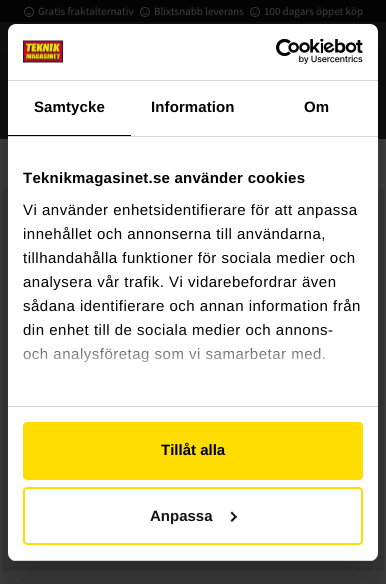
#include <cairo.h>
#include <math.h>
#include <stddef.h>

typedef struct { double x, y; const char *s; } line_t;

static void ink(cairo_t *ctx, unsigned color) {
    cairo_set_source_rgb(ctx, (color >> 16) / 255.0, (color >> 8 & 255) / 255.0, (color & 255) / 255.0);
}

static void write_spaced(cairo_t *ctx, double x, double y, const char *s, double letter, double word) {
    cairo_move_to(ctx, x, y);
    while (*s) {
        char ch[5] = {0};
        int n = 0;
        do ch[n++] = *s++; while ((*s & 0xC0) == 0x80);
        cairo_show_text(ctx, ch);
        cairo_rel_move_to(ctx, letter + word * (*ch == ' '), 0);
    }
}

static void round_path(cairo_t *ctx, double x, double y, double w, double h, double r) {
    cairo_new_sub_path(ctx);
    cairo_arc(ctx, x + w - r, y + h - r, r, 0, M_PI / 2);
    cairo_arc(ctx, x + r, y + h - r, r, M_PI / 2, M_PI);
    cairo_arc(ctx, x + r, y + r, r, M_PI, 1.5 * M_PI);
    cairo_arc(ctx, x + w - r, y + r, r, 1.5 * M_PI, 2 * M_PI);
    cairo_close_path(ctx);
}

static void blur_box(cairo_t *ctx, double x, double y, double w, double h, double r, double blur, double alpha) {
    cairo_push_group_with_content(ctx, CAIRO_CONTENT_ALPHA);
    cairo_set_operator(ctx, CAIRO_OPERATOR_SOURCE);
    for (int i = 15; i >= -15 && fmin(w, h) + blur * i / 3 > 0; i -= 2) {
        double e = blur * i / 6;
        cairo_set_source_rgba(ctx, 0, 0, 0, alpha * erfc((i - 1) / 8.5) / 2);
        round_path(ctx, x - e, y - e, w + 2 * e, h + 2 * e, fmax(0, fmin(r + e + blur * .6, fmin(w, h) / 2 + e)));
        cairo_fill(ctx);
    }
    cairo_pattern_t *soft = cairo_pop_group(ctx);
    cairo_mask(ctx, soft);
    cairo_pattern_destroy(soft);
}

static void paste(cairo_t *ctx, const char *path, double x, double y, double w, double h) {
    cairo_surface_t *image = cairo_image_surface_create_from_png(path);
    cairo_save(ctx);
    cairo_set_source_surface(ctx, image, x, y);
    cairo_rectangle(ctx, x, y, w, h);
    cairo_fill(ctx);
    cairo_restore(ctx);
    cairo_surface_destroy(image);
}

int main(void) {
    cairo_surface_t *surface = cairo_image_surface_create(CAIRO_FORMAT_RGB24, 386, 584);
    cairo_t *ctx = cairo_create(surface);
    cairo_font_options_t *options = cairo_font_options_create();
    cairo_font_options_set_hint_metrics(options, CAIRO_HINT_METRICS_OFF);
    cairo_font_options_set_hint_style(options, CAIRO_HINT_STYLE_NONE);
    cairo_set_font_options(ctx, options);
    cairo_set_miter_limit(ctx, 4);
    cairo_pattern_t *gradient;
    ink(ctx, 0x404040);
    cairo_paint(ctx);
    ink(ctx, 0x030303);
    cairo_rectangle(ctx, 0, 0, 386, 22);
    cairo_fill(ctx);
    paste(ctx, "media/1.png", 24, 7, 10, 10);
    cairo_select_font_face(ctx, "Source Sans Pro", CAIRO_FONT_SLANT_NORMAL, CAIRO_FONT_WEIGHT_NORMAL);
    cairo_set_font_size(ctx, 11);
    ink(ctx, 0x404040);
    cairo_move_to(ctx, 38, 15);
    cairo_show_text(ctx, "Gratis fraktalternativ");
    paste(ctx, "media/1.png", 140, 7, 10, 10);
    cairo_move_to(ctx, 154, 15);
    cairo_show_text(ctx, "Blixtsnabb leverans");
    paste(ctx, "media/1.png", 250, 7, 10, 10);
    cairo_move_to(ctx, 264, 15);
    cairo_show_text(ctx, "100 dagars öppet köp");
    ink(ctx, 0x0F0F0F);
    cairo_rectangle(ctx, 0, 22, 386, 117);
    cairo_fill(ctx);
    ink(ctx, 0x393939);
    cairo_rectangle(ctx, 2, 189, 382, 382);
    cairo_fill(ctx);
    ink(ctx, 0x000000);
    blur_box(ctx, 8, 56, 370, 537, 8, 34, 0.3);
    ink(ctx, 0xFFFFFF);
    round_path(ctx, 8, 24, 370, 537, 8);
    cairo_fill(ctx);
    ink(ctx, 0xD6D6D6);
    cairo_rectangle(ctx, 8, 80, 370, 1);
    cairo_fill(ctx);
    paste(ctx, "media/2.png", 23, 40, 40, 23);
    paste(ctx, "media/3.png", 276, 39, 87, 25);
    cairo_rectangle(ctx, 8, 136, 370, 1);
    cairo_fill(ctx);
    ink(ctx, 0x000000);
    cairo_rectangle(ctx, 8, 135, 123, 1);
    cairo_fill(ctx);
    cairo_select_font_face(ctx, "Liberation Sans", CAIRO_FONT_SLANT_NORMAL, CAIRO_FONT_WEIGHT_BOLD);
    cairo_set_font_size(ctx, 15);
    {
        static const line_t items[] = {
            {34, 112, "Samtycke"},
            {151, 112, "Information"},
            {304, 112, "Om"},
        };
        for (size_t i = 0; i < sizeof items / sizeof *items; i++) {
            write_spaced(ctx, items[i].x, items[i].y, items[i].s, 0.1, 0);
        }
    }
    ink(ctx, 0xD6D6D6);
    cairo_rectangle(ctx, 8, 406, 370, 1);
    cairo_fill(ctx);
    ink(ctx, 0x000000);
    write_spaced(ctx, 23, 183, "Teknikmagasinet.se använder cookies", 0.25, 0);
    cairo_select_font_face(ctx, "Liberation Sans", CAIRO_FONT_SLANT_NORMAL, CAIRO_FONT_WEIGHT_NORMAL);
    {
        static const line_t items[] = {
            {23, 215, "Vi använder enhetsidentifierare för att anpassa"},
            {23, 239, "innehållet och annonserna till användarna,"},
            {23, 263, "tillhandahålla funktioner för sociala medier och"},
            {23, 287, "analysera vår trafik. Vi vidarebefordrar även"},
            {23, 311, "sådana identifierare och annan information från"},
            {23, 335, "din enhet till de sociala medier och annons-"},
            {23, 359, "och analysföretag som vi samarbetar med."},
        };
        for (size_t i = 0; i < sizeof items / sizeof *items; i++) {
            write_spaced(ctx, items[i].x, items[i].y, items[i].s, 0.5, 0);
        }
    }
    gradient = cairo_pattern_create_linear(187, 406, 187, 331);
    cairo_pattern_add_color_stop_rgba(gradient, 0, 1, 1, 1, 1);
    cairo_pattern_add_color_stop_rgba(gradient, 0.5, 1, 1, 1, 0.8);
    cairo_pattern_add_color_stop_rgba(gradient, 1, 1, 1, 1, 0);
    cairo_set_source(ctx, gradient);
    cairo_pattern_destroy(gradient);
    cairo_rectangle(ctx, 23, 332, 304, 31);
    cairo_fill(ctx);
    cairo_save(ctx);
    round_path(ctx, 8, 24, 370, 537, 8);
    cairo_clip(ctx);
    ink(ctx, 0xD6D6D6);
    cairo_rectangle(ctx, 8, 560, 370, 1);
    cairo_fill(ctx);
    cairo_restore(ctx);
    ink(ctx, 0xFFDD00);
    round_path(ctx, 24, 423, 338, 56, 3);
    cairo_fill_preserve(ctx);
    cairo_stroke(ctx);
    cairo_select_font_face(ctx, "Liberation Sans", CAIRO_FONT_SLANT_NORMAL, CAIRO_FONT_WEIGHT_BOLD);
    ink(ctx, 0x000000);
    cairo_move_to(ctx, 161, 455);
    cairo_show_text(ctx, "Tillåt alla");
    round_path(ctx, 24, 488, 338, 56, 3);
    ink(ctx, 0xFFDD00);
    cairo_stroke(ctx);
    ink(ctx, 0x141414);
    cairo_move_to(ctx, 150, 521);
    cairo_show_text(ctx, "Anpassa");
    cairo_new_path(ctx);
    cairo_move_to(ctx, 232, 511.5);
    cairo_line_to(ctx, 237, 517);
    cairo_line_to(ctx, 235.5, 518);
    cairo_line_to(ctx, 230.5, 513);
    cairo_close_path(ctx);
    cairo_fill(ctx);
    cairo_new_path(ctx);
    cairo_move_to(ctx, 235.5, 515.5);
    cairo_line_to(ctx, 237, 517);
    cairo_line_to(ctx, 232, 522);
    cairo_line_to(ctx, 230.5, 520.5);
    cairo_close_path(ctx);
    cairo_fill(ctx);
    cairo_surface_write_to_png(surface, "image.png");
    cairo_font_options_destroy(options);
    cairo_destroy(ctx);
    cairo_surface_destroy(surface);
    return 0;
}
